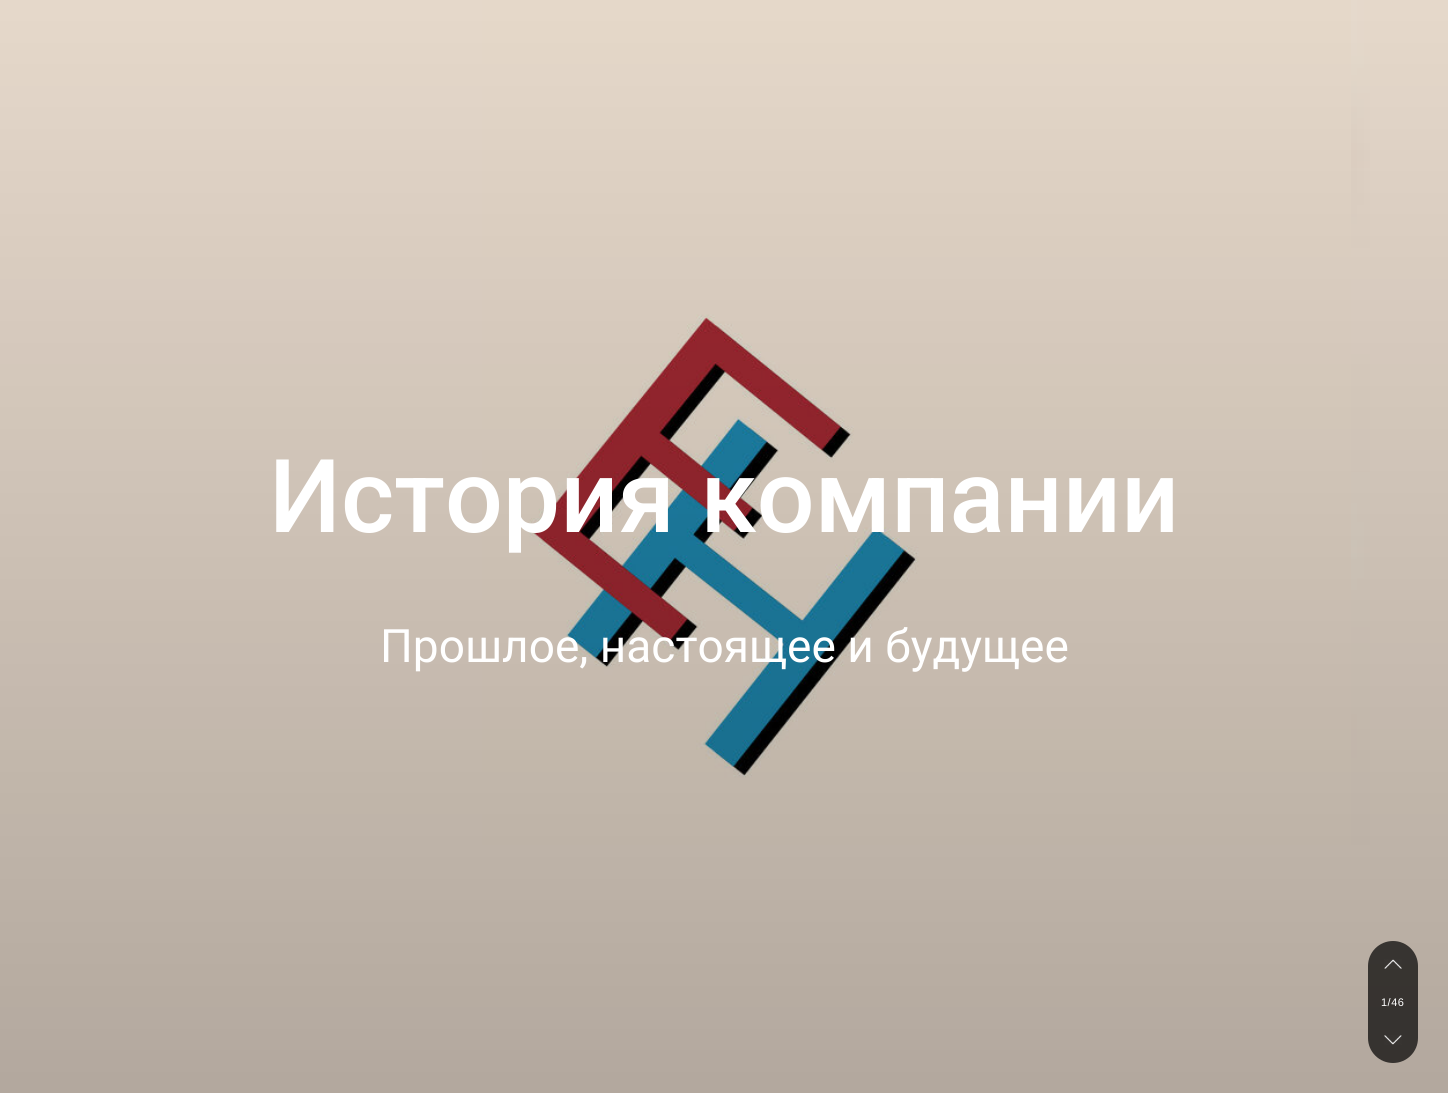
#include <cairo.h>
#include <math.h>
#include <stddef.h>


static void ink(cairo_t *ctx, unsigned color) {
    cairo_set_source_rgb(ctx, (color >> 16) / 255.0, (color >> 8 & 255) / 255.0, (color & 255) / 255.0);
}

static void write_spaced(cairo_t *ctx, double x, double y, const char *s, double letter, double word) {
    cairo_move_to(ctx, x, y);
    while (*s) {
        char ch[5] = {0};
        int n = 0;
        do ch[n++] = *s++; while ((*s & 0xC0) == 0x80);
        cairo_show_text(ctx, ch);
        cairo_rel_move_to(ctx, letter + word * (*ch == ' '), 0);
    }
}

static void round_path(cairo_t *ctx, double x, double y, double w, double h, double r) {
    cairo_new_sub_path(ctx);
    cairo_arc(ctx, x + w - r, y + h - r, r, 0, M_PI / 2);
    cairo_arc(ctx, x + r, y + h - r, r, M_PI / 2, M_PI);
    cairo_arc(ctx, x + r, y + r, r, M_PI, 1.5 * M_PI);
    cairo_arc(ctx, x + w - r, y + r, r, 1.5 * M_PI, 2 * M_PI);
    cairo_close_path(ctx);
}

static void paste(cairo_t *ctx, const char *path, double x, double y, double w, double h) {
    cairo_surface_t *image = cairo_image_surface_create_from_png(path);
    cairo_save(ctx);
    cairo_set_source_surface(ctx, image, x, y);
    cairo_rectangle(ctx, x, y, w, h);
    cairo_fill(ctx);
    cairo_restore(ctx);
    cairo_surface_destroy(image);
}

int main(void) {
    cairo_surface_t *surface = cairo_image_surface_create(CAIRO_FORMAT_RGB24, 1448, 1093);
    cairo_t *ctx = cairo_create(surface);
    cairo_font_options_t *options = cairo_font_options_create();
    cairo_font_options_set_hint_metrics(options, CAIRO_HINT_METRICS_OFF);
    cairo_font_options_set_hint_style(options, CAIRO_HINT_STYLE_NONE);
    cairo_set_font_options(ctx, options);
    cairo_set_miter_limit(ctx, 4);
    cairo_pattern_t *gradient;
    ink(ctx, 0xFFFFFF);
    cairo_paint(ctx);
    paste(ctx, "media/1.png", 0, 0, 1448, 1093);
    paste(ctx, "media/2.png", 482, 0, 869, 845);
    gradient = cairo_pattern_create_linear(724, 0, 724, 1093);
    cairo_pattern_add_color_stop_rgba(gradient, 0, 0, 0, 0, 0.1);
    cairo_pattern_add_color_stop_rgba(gradient, 1, 0, 0, 0, 0.3);
    cairo_set_source(ctx, gradient);
    cairo_pattern_destroy(gradient);
    cairo_rectangle(ctx, 0, 0, 1448, 1093);
    cairo_fill(ctx);
    cairo_select_font_face(ctx, "Roboto Medium", CAIRO_FONT_SLANT_NORMAL, CAIRO_FONT_WEIGHT_NORMAL);
    cairo_set_font_size(ctx, 102);
    ink(ctx, 0xFFFFFF);
    cairo_move_to(ctx, 269, 532);
    cairo_show_text(ctx, "История компании");
    cairo_select_font_face(ctx, "Roboto", CAIRO_FONT_SLANT_NORMAL, CAIRO_FONT_WEIGHT_NORMAL);
    cairo_set_font_size(ctx, 46);
    cairo_move_to(ctx, 380, 662);
    cairo_show_text(ctx, "Прошлое, настоящее и будущее");
    cairo_set_source_rgba(ctx, 0, 0, 0, 0.7);
    round_path(ctx, 1368, 941, 50, 122, 25);
    cairo_fill(ctx);
    paste(ctx, "media/3.png", 1384, 959, 18, 10);
    cairo_select_font_face(ctx, "Liberation Sans", CAIRO_FONT_SLANT_NORMAL, CAIRO_FONT_WEIGHT_NORMAL);
    cairo_set_font_size(ctx, 11);
    ink(ctx, 0xFFFFFF);
    write_spaced(ctx, 1381, 1006, "1/46", 0.5, 0);
    paste(ctx, "media/4.png", 1384, 1035, 18, 10);
    cairo_surface_write_to_png(surface, "image.png");
    cairo_font_options_destroy(options);
    cairo_destroy(ctx);
    cairo_surface_destroy(surface);
    return 0;
}
